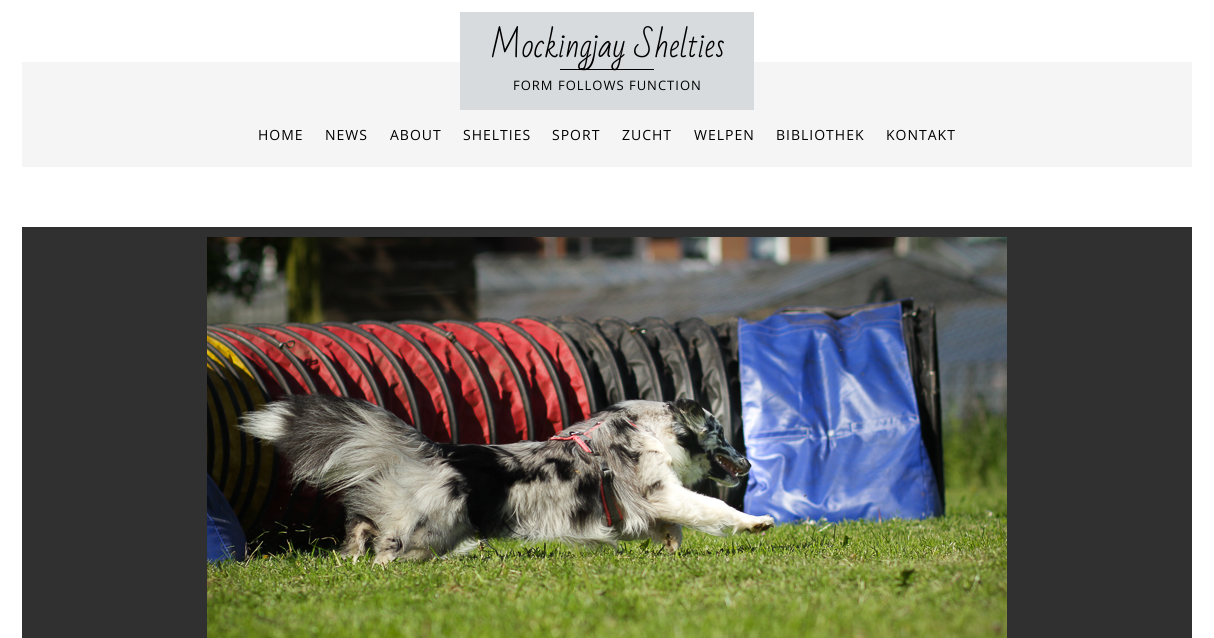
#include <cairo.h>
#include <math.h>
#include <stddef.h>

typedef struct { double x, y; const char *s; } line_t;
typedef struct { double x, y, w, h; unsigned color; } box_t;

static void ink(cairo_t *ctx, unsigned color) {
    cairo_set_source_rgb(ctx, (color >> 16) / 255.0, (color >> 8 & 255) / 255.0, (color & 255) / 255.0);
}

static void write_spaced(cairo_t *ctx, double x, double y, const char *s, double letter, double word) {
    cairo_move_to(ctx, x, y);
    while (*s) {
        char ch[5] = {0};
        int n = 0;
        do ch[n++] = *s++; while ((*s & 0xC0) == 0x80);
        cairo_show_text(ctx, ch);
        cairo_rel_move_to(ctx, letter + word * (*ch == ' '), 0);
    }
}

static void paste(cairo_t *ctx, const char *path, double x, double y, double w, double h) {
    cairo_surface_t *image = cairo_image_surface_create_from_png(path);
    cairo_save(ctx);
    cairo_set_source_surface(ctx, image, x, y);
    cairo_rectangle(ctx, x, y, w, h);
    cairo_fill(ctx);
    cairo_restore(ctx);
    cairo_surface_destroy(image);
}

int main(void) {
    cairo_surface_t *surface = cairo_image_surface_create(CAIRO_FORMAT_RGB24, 1214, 638);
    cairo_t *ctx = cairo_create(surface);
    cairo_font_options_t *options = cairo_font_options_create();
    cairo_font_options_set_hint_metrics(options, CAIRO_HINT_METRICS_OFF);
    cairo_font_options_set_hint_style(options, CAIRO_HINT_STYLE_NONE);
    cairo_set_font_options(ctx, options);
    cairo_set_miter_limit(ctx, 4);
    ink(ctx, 0xFFFFFF);
    cairo_paint(ctx);
    {
        static const box_t items[] = {
            {22, 62, 1170, 105, 0xF5F5F5},
            {460, 12, 294, 98, 0xD7DBDE},
            {560, 69, 94, 1, 0x000000},
        };
        for (size_t i = 0; i < sizeof items / sizeof *items; i++) {
            ink(ctx, items[i].color);
            cairo_rectangle(ctx, items[i].x, items[i].y, items[i].w, items[i].h);
            cairo_fill(ctx);
        }
    }
    cairo_select_font_face(ctx, "Bad Script", CAIRO_FONT_SLANT_NORMAL, CAIRO_FONT_WEIGHT_NORMAL);
    cairo_set_font_size(ctx, 32);
    cairo_move_to(ctx, 490, 57);
    cairo_show_text(ctx, "Mockingjay Shelties");
    cairo_select_font_face(ctx, "Open Sans", CAIRO_FONT_SLANT_NORMAL, CAIRO_FONT_WEIGHT_NORMAL);
    cairo_set_font_size(ctx, 13);
    write_spaced(ctx, 513, 90, "FORM FOLLOWS FUNCTION", 1, 0);
    cairo_set_font_size(ctx, 14);
    {
        static const line_t items[] = {
            {258, 140, "HOME"},
            {325, 140, "NEWS"},
            {390, 140, "ABOUT"},
            {463, 140, "SHELTIES"},
            {552, 140, "SPORT"},
            {622, 140, "ZUCHT"},
            {694, 140, "WELPEN"},
            {776, 140, "BIBLIOTHEK"},
            {886, 140, "KONTAKT"},
        };
        for (size_t i = 0; i < sizeof items / sizeof *items; i++) {
            write_spaced(ctx, items[i].x, items[i].y, items[i].s, 1, 0);
        }
    }
    ink(ctx, 0x303030);
    cairo_rectangle(ctx, 22, 227, 1170, 411);
    cairo_fill(ctx);
    paste(ctx, "media/1.png", 207, 237, 800, 401);
    cairo_surface_write_to_png(surface, "image.png");
    cairo_font_options_destroy(options);
    cairo_destroy(ctx);
    cairo_surface_destroy(surface);
    return 0;
}
